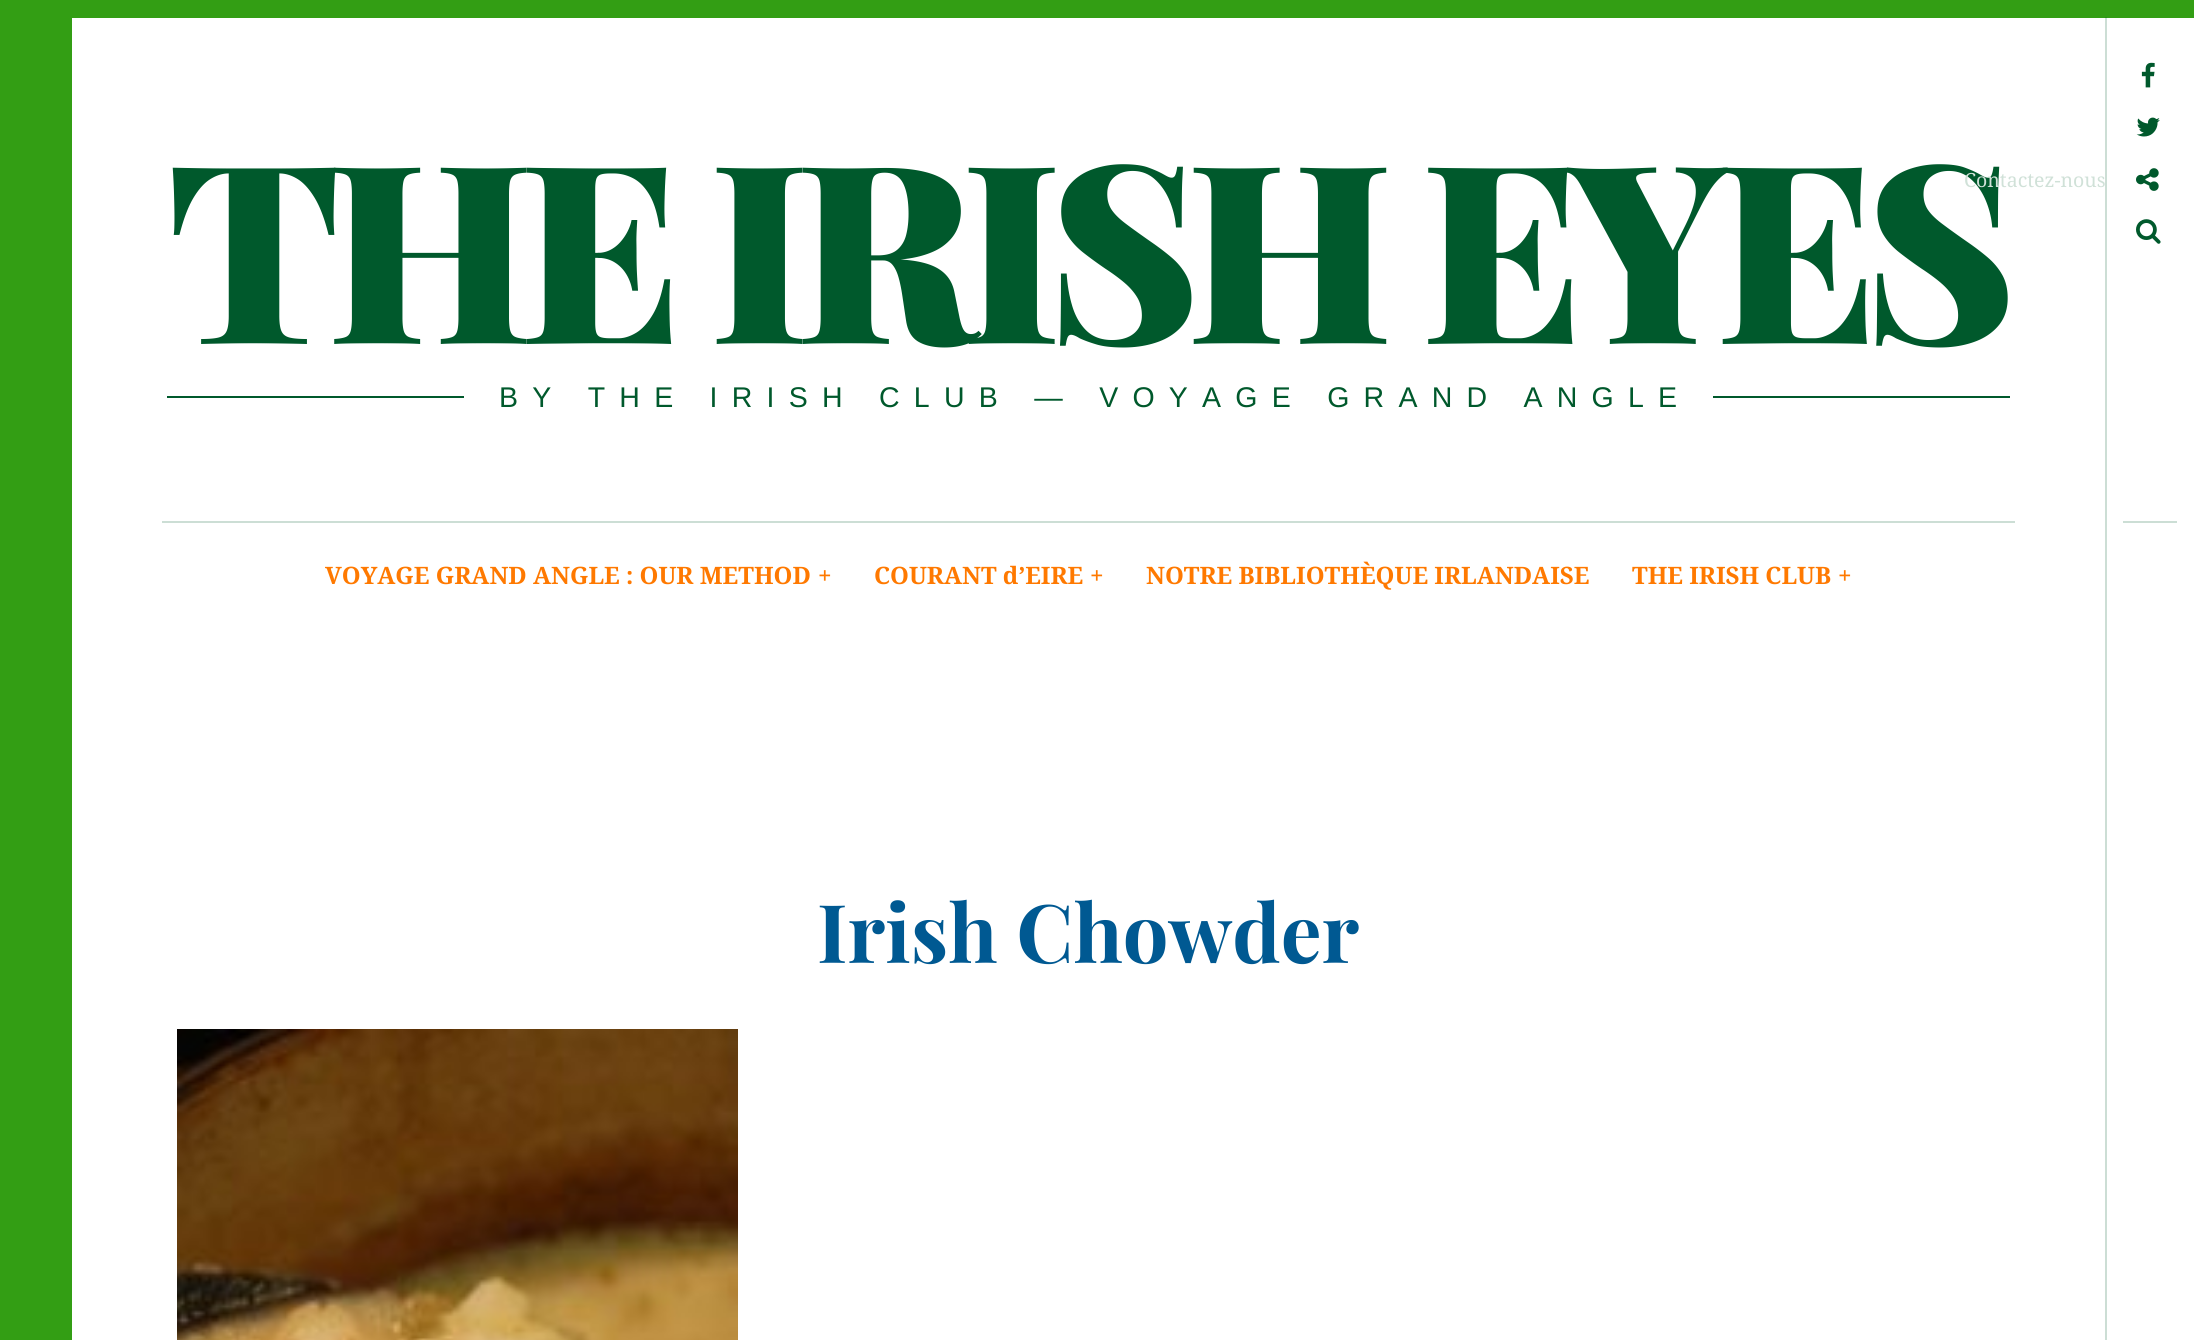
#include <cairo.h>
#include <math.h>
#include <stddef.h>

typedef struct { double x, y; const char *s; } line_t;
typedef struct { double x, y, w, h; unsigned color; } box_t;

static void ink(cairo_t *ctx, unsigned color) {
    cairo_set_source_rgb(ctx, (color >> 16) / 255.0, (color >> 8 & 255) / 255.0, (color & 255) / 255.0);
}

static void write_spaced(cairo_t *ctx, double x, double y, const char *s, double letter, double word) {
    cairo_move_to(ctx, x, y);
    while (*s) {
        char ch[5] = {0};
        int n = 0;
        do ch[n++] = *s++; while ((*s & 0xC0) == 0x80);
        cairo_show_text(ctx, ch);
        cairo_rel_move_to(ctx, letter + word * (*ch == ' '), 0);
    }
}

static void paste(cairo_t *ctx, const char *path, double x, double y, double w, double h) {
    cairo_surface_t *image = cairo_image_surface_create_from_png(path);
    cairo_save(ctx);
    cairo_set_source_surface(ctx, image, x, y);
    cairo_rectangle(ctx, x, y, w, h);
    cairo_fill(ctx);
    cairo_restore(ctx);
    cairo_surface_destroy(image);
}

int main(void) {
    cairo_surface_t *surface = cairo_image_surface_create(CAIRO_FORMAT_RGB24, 2194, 1340);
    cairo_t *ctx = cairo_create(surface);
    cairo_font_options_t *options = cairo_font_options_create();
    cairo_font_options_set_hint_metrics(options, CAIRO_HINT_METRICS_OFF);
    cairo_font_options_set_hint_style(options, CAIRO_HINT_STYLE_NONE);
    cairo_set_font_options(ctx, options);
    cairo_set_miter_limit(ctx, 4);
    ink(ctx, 0xFFFFFF);
    cairo_paint(ctx);
    {
        static const box_t items[] = {
            {2105, 17, 2, 1323, 0xCCDED5},
            {0, 0, 72, 1340, 0x339E14},
            {72, 0, 2122, 18, 0x339E14},
            {2105, 17, 2, 1, 0x299019},
        };
        for (size_t i = 0; i < sizeof items / sizeof *items; i++) {
            ink(ctx, items[i].color);
            cairo_rectangle(ctx, items[i].x, items[i].y, items[i].w, items[i].h);
            cairo_fill(ctx);
        }
    }
    cairo_select_font_face(ctx, "Playfair Display Black", CAIRO_FONT_SLANT_NORMAL, CAIRO_FONT_WEIGHT_NORMAL);
    cairo_set_font_size(ctx, 249);
    ink(ctx, 0x00592C);
    write_spaced(ctx, 167, 344, "THE IRISH EYES", -13.75, 0);
    cairo_rectangle(ctx, 167, 396, 1843, 2);
    cairo_fill(ctx);
    ink(ctx, 0xFFFFFF);
    cairo_rectangle(ctx, 464, 396, 1249, 2);
    cairo_fill(ctx);
    cairo_select_font_face(ctx, "Liberation Sans", CAIRO_FONT_SLANT_NORMAL, CAIRO_FONT_WEIGHT_NORMAL);
    cairo_set_font_size(ctx, 28.5);
    ink(ctx, 0x00592C);
    write_spaced(ctx, 499, 407, "BY THE IRISH CLUB — VOYAGE GRAND ANGLE", 14.25, 0);
    ink(ctx, 0xCCDED5);
    cairo_rectangle(ctx, 162, 521, 1853, 2);
    cairo_fill(ctx);
    cairo_select_font_face(ctx, "Noto Serif", CAIRO_FONT_SLANT_NORMAL, CAIRO_FONT_WEIGHT_BOLD);
    cairo_set_font_size(ctx, 24);
    ink(ctx, 0xFF7900);
    {
        static const line_t items[] = {
            {325, 584, "VOYAGE GRAND ANGLE : OUR METHOD"},
            {818, 584, "+"},
            {874, 584, "COURANT d’EIRE"},
            {1090, 584, "+"},
            {1146, 584, "NOTRE BIBLIOTHÈQUE IRLANDAISE"},
            {1632, 584, "THE IRISH CLUB"},
            {1838, 584, "+"},
        };
        for (size_t i = 0; i < sizeof items / sizeof *items; i++) {
            cairo_move_to(ctx, items[i].x, items[i].y);
            cairo_show_text(ctx, items[i].s);
        }
    }
    cairo_select_font_face(ctx, "Playfair Display", CAIRO_FONT_SLANT_NORMAL, CAIRO_FONT_WEIGHT_BOLD);
    cairo_set_font_size(ctx, 81);
    ink(ctx, 0x005992);
    cairo_move_to(ctx, 817, 963);
    cairo_show_text(ctx, "Irish Chowder");
    paste(ctx, "media/1.png", 177, 1029, 561, 311);
    paste(ctx, "media/2.png", 2141, 62, 14, 26);
    paste(ctx, "media/3.png", 2136, 117, 24, 20);
    cairo_select_font_face(ctx, "Noto Serif", CAIRO_FONT_SLANT_NORMAL, CAIRO_FONT_WEIGHT_NORMAL);
    cairo_set_font_size(ctx, 19.5);
    ink(ctx, 0xD0E1D8);
    cairo_move_to(ctx, 1964, 187);
    cairo_show_text(ctx, "Contactez-nous");
    paste(ctx, "media/4.png", 2136, 168, 23, 23);
    paste(ctx, "media/5.png", 2136, 219, 25, 25);
    ink(ctx, 0xCCDED5);
    cairo_rectangle(ctx, 2123, 521, 54, 2);
    cairo_fill(ctx);
    cairo_surface_write_to_png(surface, "image.png");
    cairo_font_options_destroy(options);
    cairo_destroy(ctx);
    cairo_surface_destroy(surface);
    return 0;
}
